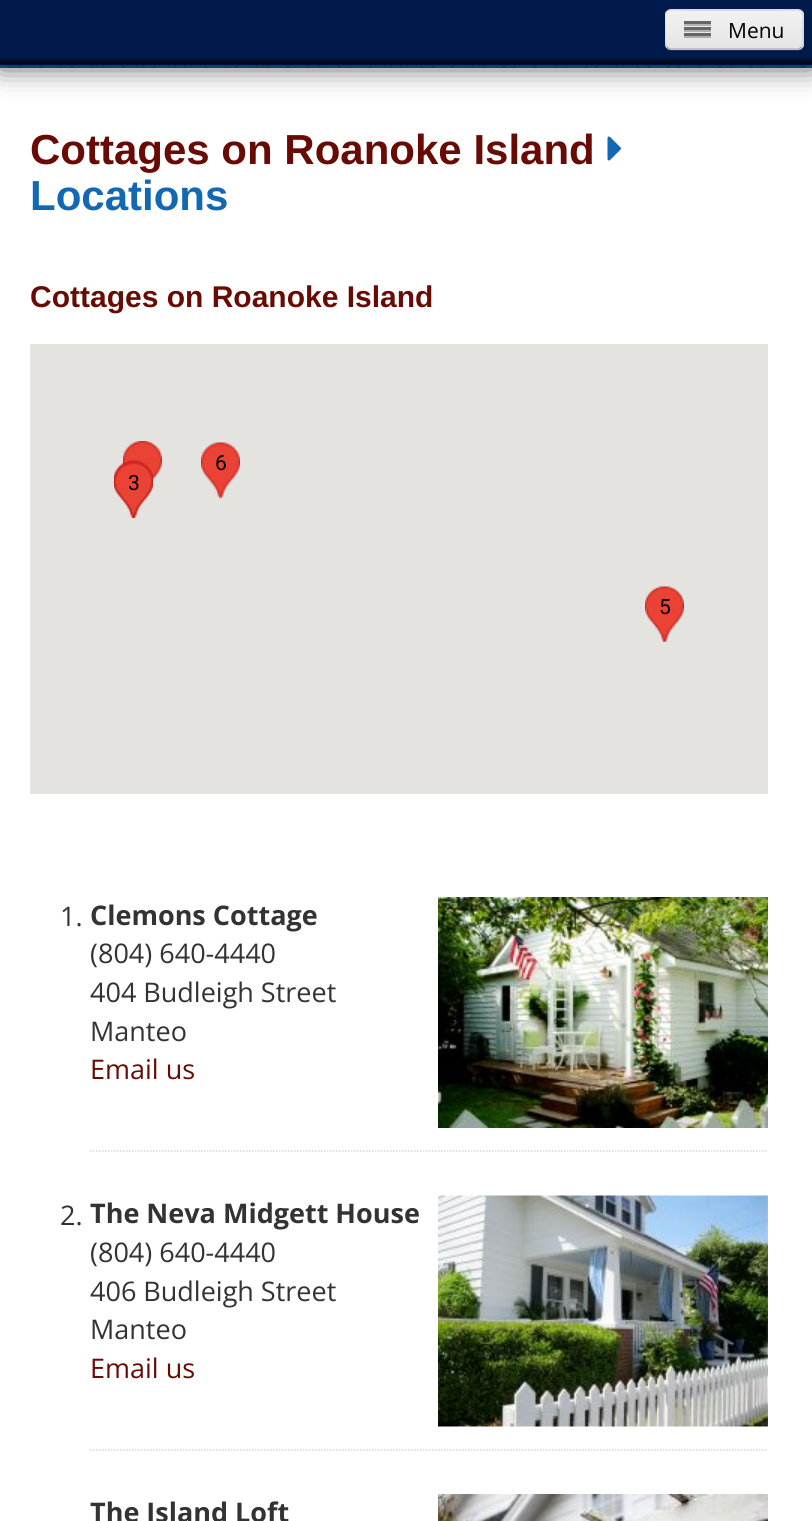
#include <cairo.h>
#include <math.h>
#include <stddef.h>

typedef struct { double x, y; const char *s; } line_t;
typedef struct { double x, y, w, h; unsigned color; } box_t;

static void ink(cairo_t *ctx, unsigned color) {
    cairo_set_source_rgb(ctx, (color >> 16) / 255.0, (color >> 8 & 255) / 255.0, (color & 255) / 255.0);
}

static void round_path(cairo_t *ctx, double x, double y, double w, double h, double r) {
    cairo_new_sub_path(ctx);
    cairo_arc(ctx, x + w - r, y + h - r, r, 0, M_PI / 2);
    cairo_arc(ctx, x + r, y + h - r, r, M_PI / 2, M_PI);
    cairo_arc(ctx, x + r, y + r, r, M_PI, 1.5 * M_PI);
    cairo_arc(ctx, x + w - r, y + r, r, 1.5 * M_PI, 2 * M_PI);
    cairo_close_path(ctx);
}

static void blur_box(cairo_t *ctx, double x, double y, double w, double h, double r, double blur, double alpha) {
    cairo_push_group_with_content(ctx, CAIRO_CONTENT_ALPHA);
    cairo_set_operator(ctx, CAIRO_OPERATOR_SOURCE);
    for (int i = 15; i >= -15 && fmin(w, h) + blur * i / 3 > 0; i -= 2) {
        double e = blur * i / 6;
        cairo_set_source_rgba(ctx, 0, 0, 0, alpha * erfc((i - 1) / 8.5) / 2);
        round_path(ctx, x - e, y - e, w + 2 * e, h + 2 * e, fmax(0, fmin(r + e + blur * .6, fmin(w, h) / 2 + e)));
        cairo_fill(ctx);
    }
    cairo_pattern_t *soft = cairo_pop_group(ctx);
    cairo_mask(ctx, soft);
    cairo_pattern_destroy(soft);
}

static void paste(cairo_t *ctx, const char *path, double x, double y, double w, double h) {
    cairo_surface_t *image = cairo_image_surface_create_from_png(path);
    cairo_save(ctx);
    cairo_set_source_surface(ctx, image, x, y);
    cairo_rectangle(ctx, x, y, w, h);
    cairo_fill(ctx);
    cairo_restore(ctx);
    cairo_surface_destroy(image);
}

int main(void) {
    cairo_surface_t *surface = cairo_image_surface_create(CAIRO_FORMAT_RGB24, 812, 1521);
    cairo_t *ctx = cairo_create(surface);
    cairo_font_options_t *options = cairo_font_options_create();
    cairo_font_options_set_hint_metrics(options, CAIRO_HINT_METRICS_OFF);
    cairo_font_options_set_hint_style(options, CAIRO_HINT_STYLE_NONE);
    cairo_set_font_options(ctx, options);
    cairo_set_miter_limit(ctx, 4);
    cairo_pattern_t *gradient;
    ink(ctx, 0xFFFFFF);
    cairo_paint(ctx);
    paste(ctx, "media/1.png", 0, 65, 812, 3);
    ink(ctx, 0x000000);
    blur_box(ctx, 0, 0, 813, 65, 0, 15, 0.75);
    ink(ctx, 0x001B4B);
    cairo_rectangle(ctx, 0, 0, 812, 65);
    cairo_fill(ctx);
    paste(ctx, "media/2.png", 0, 57, 812, 8);
    ink(ctx, 0x132C59);
    cairo_new_path(ctx);
    cairo_move_to(ctx, 665, 46);
    cairo_curve_to(ctx, 666, 49, 668, 51, 671, 51);
    cairo_line_to(ctx, 798, 51);
    cairo_curve_to(ctx, 801, 51, 804, 48, 804, 45);
    cairo_line_to(ctx, 804, 44);
    cairo_curve_to(ctx, 804, 47, 801, 50, 798, 50);
    cairo_line_to(ctx, 670, 50);
    cairo_curve_to(ctx, 668, 50, 666, 48, 665, 46);
    cairo_close_path(ctx);
    cairo_fill(ctx);
    ink(ctx, 0xEDEDED);
    round_path(ctx, 665, 9, 139, 41, 6);
    cairo_fill(ctx);
    cairo_save(ctx);
    round_path(ctx, 665, 9, 139, 41, 6);
    cairo_clip(ctx);
    gradient = cairo_pattern_create_linear(734, 10, 734, 48);
    cairo_pattern_add_color_stop_rgba(gradient, 0, 0.949, 0.949, 0.949, 1);
    cairo_pattern_add_color_stop_rgba(gradient, 1, 0.898, 0.898, 0.898, 1);
    cairo_set_source(ctx, gradient);
    cairo_pattern_destroy(gradient);
    cairo_rectangle(ctx, 665, 11, 139, 37);
    cairo_fill(ctx);
    cairo_restore(ctx);
    cairo_new_path(ctx);
    cairo_move_to(ctx, 801.5, 47);
    cairo_curve_to(ctx, 800.5, 48, 799.5, 49, 798, 49);
    cairo_line_to(ctx, 670.5, 49);
    cairo_curve_to(ctx, 669, 49, 668, 48, 667, 47);
    cairo_set_source_rgba(ctx, 0, 0, 0, 0.25);
    cairo_set_line_width(ctx, 1.5);
    cairo_stroke(ctx);
    cairo_new_path(ctx);
    cairo_move_to(ctx, 667, 47);
    cairo_curve_to(ctx, 664, 44, 665, 37.5, 665, 34);
    cairo_curve_to(ctx, 665, 5, 661, 10, 692, 10);
    cairo_line_to(ctx, 777, 10);
    cairo_curve_to(ctx, 807.5, 10, 803, 5, 803, 34);
    cairo_curve_to(ctx, 803, 37.5, 804.5, 44, 801.5, 47);
    cairo_set_source_rgba(ctx, 0, 0, 0, 0.1);
    cairo_stroke(ctx);
    ink(ctx, 0xB2B2B2);
    cairo_rectangle(ctx, 684, 24, 27, 2);
    cairo_fill(ctx);
    ink(ctx, 0x666666);
    cairo_rectangle(ctx, 684, 21, 27, 3);
    cairo_fill(ctx);
    cairo_select_font_face(ctx, "Open Sans", CAIRO_FONT_SLANT_NORMAL, CAIRO_FONT_WEIGHT_NORMAL);
    cairo_set_font_size(ctx, 21);
    ink(ctx, 0x000000);
    cairo_move_to(ctx, 728, 38);
    cairo_show_text(ctx, "Menu");
    {
        static const box_t items[] = {
            {684, 30, 27, 2, 0xB0B0B0},
            {684, 27, 27, 3, 0x666666},
            {684, 36, 27, 2, 0xAFAFAF},
            {684, 33, 27, 3, 0x666666},
        };
        for (size_t i = 0; i < sizeof items / sizeof *items; i++) {
            ink(ctx, items[i].color);
            cairo_rectangle(ctx, items[i].x, items[i].y, items[i].w, items[i].h);
            cairo_fill(ctx);
        }
    }
    cairo_select_font_face(ctx, "Liberation Sans", CAIRO_FONT_SLANT_NORMAL, CAIRO_FONT_WEIGHT_BOLD);
    cairo_set_font_size(ctx, 42);
    ink(ctx, 0x680B04);
    cairo_move_to(ctx, 30, 164);
    cairo_show_text(ctx, "Cottages on Roanoke Island");
    paste(ctx, "media/3.png", 607, 136, 14, 25);
    ink(ctx, 0x1268B3);
    cairo_move_to(ctx, 30, 210);
    cairo_show_text(ctx, "Locations");
    cairo_set_font_size(ctx, 30);
    ink(ctx, 0x680B04);
    cairo_move_to(ctx, 30, 307);
    cairo_show_text(ctx, "Cottages on Roanoke Island");
    ink(ctx, 0xE5E3DF);
    cairo_rectangle(ctx, 30, 344, 738, 450);
    cairo_fill(ctx);
    paste(ctx, "media/4.png", 123, 441, 39, 42);
    paste(ctx, "media/5.png", 201, 442, 39, 57);
    paste(ctx, "media/6.png", 114, 460, 39, 57);
    cairo_select_font_face(ctx, "Roboto", CAIRO_FONT_SLANT_NORMAL, CAIRO_FONT_WEIGHT_NORMAL);
    cairo_set_font_size(ctx, 21);
    ink(ctx, 0x000000);
    cairo_move_to(ctx, 215, 470);
    cairo_show_text(ctx, "6");
    paste(ctx, "media/7.png", 114, 462, 39, 56);
    paste(ctx, "media/8.png", 114, 462, 39, 56);
    cairo_move_to(ctx, 128, 490);
    cairo_show_text(ctx, "3");
    paste(ctx, "media/9.png", 645, 586, 39, 56);
    cairo_move_to(ctx, 659, 614);
    cairo_show_text(ctx, "5");
    cairo_select_font_face(ctx, "Open Sans", CAIRO_FONT_SLANT_NORMAL, CAIRO_FONT_WEIGHT_NORMAL);
    cairo_set_font_size(ctx, 27);
    ink(ctx, 0x333333);
    cairo_move_to(ctx, 60, 926);
    cairo_show_text(ctx, "1.");
    cairo_new_path(ctx);
    cairo_move_to(ctx, 90, 1151);
    cairo_line_to(ctx, 768, 1151);
    ink(ctx, 0xD3D7D9);
    cairo_set_dash(ctx, (double[]){1.5, 1.5}, 2, 0);
    cairo_stroke(ctx);
    cairo_select_font_face(ctx, "Open Sans", CAIRO_FONT_SLANT_NORMAL, CAIRO_FONT_WEIGHT_BOLD);
    ink(ctx, 0x333333);
    cairo_move_to(ctx, 90, 925);
    cairo_show_text(ctx, "Clemons Cottage");
    paste(ctx, "media/10.png", 438, 897, 330, 231);
    cairo_select_font_face(ctx, "Open Sans", CAIRO_FONT_SLANT_NORMAL, CAIRO_FONT_WEIGHT_NORMAL);
    {
        static const line_t items[] = {
            {90, 963, "(804) 640-4440"},
            {90, 1002, "404 Budleigh Street"},
            {90, 1041, "Manteo"},
        };
        for (size_t i = 0; i < sizeof items / sizeof *items; i++) {
            cairo_move_to(ctx, items[i].x, items[i].y);
            cairo_show_text(ctx, items[i].s);
        }
    }
    ink(ctx, 0x680B04);
    cairo_move_to(ctx, 90, 1079);
    cairo_show_text(ctx, "Email us");
    ink(ctx, 0x333333);
    cairo_move_to(ctx, 60, 1225);
    cairo_show_text(ctx, "2.");
    cairo_new_path(ctx);
    cairo_move_to(ctx, 90, 1450);
    cairo_line_to(ctx, 768, 1450);
    ink(ctx, 0xD3D7D9);
    cairo_stroke(ctx);
    cairo_select_font_face(ctx, "Open Sans", CAIRO_FONT_SLANT_NORMAL, CAIRO_FONT_WEIGHT_BOLD);
    ink(ctx, 0x333333);
    cairo_move_to(ctx, 90, 1223);
    cairo_show_text(ctx, "The Neva Midgett House");
    paste(ctx, "media/11.png", 438, 1195, 330, 232);
    cairo_select_font_face(ctx, "Open Sans", CAIRO_FONT_SLANT_NORMAL, CAIRO_FONT_WEIGHT_NORMAL);
    {
        static const line_t items[] = {
            {90, 1262, "(804) 640-4440"},
            {90, 1301, "406 Budleigh Street"},
            {90, 1339, "Manteo"},
        };
        for (size_t i = 0; i < sizeof items / sizeof *items; i++) {
            cairo_move_to(ctx, items[i].x, items[i].y);
            cairo_show_text(ctx, items[i].s);
        }
    }
    ink(ctx, 0x680B04);
    cairo_move_to(ctx, 90, 1378);
    cairo_show_text(ctx, "Email us");
    cairo_select_font_face(ctx, "Open Sans", CAIRO_FONT_SLANT_NORMAL, CAIRO_FONT_WEIGHT_BOLD);
    ink(ctx, 0x333333);
    cairo_move_to(ctx, 90, 1522);
    cairo_show_text(ctx, "The Island Loft");
    paste(ctx, "media/12.png", 438, 1494, 330, 27);
    cairo_surface_write_to_png(surface, "image.png");
    cairo_font_options_destroy(options);
    cairo_destroy(ctx);
    cairo_surface_destroy(surface);
    return 0;
}
